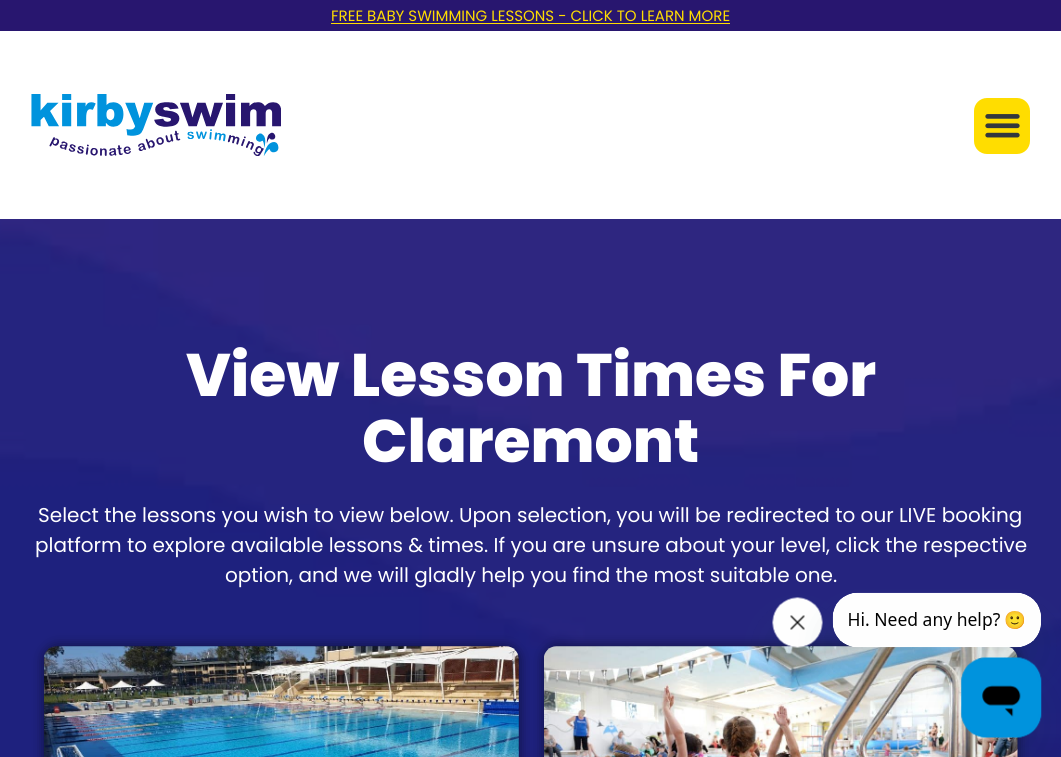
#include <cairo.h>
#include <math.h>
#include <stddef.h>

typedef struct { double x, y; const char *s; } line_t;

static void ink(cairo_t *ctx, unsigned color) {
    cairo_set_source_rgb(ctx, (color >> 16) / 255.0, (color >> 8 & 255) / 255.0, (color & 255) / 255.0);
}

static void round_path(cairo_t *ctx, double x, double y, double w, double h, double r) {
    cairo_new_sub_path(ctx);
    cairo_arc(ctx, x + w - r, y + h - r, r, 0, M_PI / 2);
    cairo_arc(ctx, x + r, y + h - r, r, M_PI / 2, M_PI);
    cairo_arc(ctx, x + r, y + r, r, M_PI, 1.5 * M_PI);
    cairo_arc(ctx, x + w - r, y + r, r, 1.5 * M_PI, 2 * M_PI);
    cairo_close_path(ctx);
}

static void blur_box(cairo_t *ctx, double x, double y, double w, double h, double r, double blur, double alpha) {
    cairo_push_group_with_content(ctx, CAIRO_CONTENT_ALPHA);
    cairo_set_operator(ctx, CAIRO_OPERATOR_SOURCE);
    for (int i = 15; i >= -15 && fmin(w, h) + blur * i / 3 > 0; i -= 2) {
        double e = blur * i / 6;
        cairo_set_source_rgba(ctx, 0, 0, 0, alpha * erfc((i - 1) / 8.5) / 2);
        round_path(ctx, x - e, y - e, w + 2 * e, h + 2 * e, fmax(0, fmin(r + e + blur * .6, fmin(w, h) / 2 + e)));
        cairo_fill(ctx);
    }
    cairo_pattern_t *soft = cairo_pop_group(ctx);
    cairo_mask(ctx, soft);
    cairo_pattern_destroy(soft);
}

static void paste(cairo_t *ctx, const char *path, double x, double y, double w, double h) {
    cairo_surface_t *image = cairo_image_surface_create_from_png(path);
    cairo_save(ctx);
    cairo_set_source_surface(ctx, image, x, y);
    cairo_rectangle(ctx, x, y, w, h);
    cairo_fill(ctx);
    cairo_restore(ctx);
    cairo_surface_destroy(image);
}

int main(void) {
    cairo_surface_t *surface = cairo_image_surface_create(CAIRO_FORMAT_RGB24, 1061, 757);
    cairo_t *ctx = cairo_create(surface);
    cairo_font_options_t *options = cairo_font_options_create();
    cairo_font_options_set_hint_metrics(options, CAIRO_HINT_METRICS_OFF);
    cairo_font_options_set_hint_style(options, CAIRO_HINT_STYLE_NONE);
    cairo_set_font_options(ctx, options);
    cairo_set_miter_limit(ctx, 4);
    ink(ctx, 0x28166F);
    cairo_paint(ctx);
    cairo_select_font_face(ctx, "Poppins", CAIRO_FONT_SLANT_NORMAL, CAIRO_FONT_WEIGHT_NORMAL);
    cairo_set_font_size(ctx, 15);
    ink(ctx, 0xFFDD00);
    cairo_move_to(ctx, 331, 21);
    cairo_show_text(ctx, "FREE BABY SWIMMING LESSONS - CLICK TO LEARN MORE");
    cairo_rectangle(ctx, 331, 23, 399, 1);
    cairo_fill(ctx);
    ink(ctx, 0xFFFFFF);
    cairo_rectangle(ctx, 0, 31, 1061, 188);
    cairo_fill(ctx);
    paste(ctx, "media/1.png", 31, 94, 250, 62);
    ink(ctx, 0xFFDD00);
    round_path(ctx, 974, 98, 56, 56, 13);
    cairo_fill(ctx);
    paste(ctx, "media/2.png", 985, 114, 35, 24);
    paste(ctx, "media/3.png", 0, 219, 1061, 538);
    cairo_select_font_face(ctx, "Poppins ExtraBold", CAIRO_FONT_SLANT_NORMAL, CAIRO_FONT_WEIGHT_NORMAL);
    cairo_set_font_size(ctx, 60);
    ink(ctx, 0xFFFFFF);
    cairo_move_to(ctx, 186, 396);
    cairo_show_text(ctx, "View Lesson Times For");
    cairo_move_to(ctx, 362, 462);
    cairo_show_text(ctx, "Claremont");
    cairo_select_font_face(ctx, "Poppins", CAIRO_FONT_SLANT_NORMAL, CAIRO_FONT_WEIGHT_NORMAL);
    cairo_set_font_size(ctx, 20);
    {
        static const line_t items[] = {
            {38, 522, "Select the lessons you wish to view below. Upon selection, you will be redirected to our LIVE booking"},
            {35, 552, "platform to explore available lessons & times. If you are unsure about your level, click the respective"},
            {225, 582, "option, and we will gladly help you find the most suitable one."},
        };
        for (size_t i = 0; i < sizeof items / sizeof *items; i++) {
            cairo_move_to(ctx, items[i].x, items[i].y);
            cairo_show_text(ctx, items[i].s);
        }
    }
    ink(ctx, 0x000000);
    blur_box(ctx, 44, 646, 475, 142, 13, 6, 0.5);
    paste(ctx, "media/4.png", 44, 646, 475, 111);
    blur_box(ctx, 544, 646, 474, 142, 13, 6, 0.5);
    paste(ctx, "media/5.png", 544, 646, 474, 111);
    ink(ctx, 0x17494D);
    blur_box(ctx, 773, 623, 50, 50, 25, 19, 0.15);
    paste(ctx, "media/7.png", 772, 597, 51, 51);
    blur_box(ctx, 833, 618, 208, 55, 25, 19, 0.15);
    paste(ctx, "media/6.png", 832, 592, 209, 56);
    blur_box(ctx, 961, 683, 80, 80, 25, 19, 0.15);
    paste(ctx, "media/8.png", 961, 657, 81, 81);
    cairo_surface_write_to_png(surface, "image.png");
    cairo_font_options_destroy(options);
    cairo_destroy(ctx);
    cairo_surface_destroy(surface);
    return 0;
}
